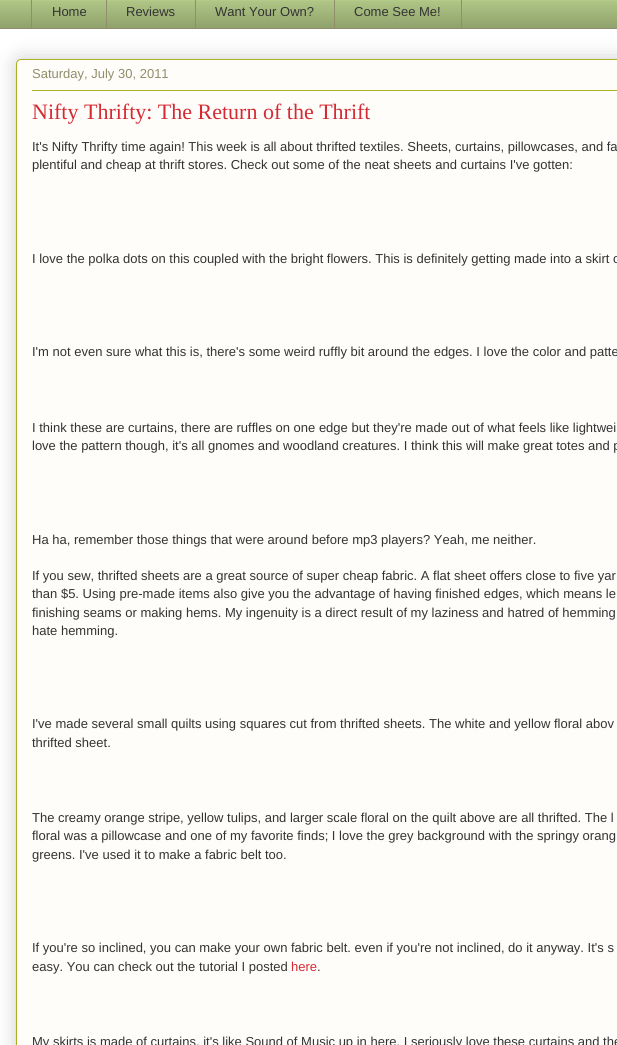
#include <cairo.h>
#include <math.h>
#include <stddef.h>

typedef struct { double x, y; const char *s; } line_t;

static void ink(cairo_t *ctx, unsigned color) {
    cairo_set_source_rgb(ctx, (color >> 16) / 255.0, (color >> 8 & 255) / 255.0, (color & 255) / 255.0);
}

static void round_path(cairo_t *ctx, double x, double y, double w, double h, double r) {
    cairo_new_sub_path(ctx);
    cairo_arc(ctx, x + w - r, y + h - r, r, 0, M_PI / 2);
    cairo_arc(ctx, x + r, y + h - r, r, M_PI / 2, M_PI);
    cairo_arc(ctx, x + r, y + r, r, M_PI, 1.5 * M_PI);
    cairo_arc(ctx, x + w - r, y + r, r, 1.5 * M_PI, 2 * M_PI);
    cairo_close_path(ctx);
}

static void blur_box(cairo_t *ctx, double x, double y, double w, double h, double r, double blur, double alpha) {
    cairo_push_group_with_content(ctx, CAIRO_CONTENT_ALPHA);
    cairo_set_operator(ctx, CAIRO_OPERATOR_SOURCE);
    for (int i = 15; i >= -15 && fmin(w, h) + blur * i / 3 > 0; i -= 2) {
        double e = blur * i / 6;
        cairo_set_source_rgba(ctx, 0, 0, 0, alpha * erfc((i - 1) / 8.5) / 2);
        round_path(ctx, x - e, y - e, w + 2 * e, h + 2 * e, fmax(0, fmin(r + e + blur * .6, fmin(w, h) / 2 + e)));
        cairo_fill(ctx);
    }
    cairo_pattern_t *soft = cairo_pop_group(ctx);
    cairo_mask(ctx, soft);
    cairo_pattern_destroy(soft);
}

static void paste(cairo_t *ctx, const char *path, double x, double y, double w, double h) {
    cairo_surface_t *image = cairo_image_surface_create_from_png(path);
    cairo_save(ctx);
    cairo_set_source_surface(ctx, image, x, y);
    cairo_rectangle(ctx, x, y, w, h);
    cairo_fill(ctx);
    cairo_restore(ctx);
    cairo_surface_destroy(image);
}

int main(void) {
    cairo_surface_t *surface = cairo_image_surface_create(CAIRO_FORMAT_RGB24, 617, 1045);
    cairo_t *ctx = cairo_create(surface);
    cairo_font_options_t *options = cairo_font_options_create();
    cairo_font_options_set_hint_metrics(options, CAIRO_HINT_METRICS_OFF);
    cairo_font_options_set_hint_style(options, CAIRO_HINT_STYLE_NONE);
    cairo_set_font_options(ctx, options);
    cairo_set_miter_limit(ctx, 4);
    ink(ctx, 0xFFFFFF);
    cairo_paint(ctx);
    ink(ctx, 0xB3CA88);
    cairo_rectangle(ctx, 0, 0, 617, 28);
    cairo_fill(ctx);
    paste(ctx, "media/1.png", 0, 1, 617, 27);
    ink(ctx, 0x908D6A);
    cairo_rectangle(ctx, 31, 0, 1, 29);
    cairo_fill(ctx);
    cairo_select_font_face(ctx, "Liberation Sans", CAIRO_FONT_SLANT_NORMAL, CAIRO_FONT_WEIGHT_NORMAL);
    cairo_set_font_size(ctx, 13);
    ink(ctx, 0x333333);
    cairo_move_to(ctx, 52, 16);
    cairo_show_text(ctx, "Home");
    ink(ctx, 0x908D6A);
    cairo_rectangle(ctx, 106, 0, 1, 29);
    cairo_fill(ctx);
    ink(ctx, 0x333333);
    cairo_move_to(ctx, 126, 16);
    cairo_show_text(ctx, "Reviews");
    ink(ctx, 0x908D6A);
    cairo_rectangle(ctx, 195, 0, 1, 29);
    cairo_fill(ctx);
    ink(ctx, 0x333333);
    cairo_move_to(ctx, 215, 16);
    cairo_show_text(ctx, "Want Your Own?");
    cairo_rectangle(ctx, 334.5, -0.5, 127, 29);
    ink(ctx, 0x908D6A);
    cairo_set_line_width(ctx, 1);
    cairo_stroke(ctx);
    ink(ctx, 0x333333);
    cairo_move_to(ctx, 354, 16);
    cairo_show_text(ctx, "Come See Me!");
    ink(ctx, 0x908D6A);
    cairo_rectangle(ctx, 0, 28, 617, 1);
    cairo_fill(ctx);
    ink(ctx, 0x000000);
    blur_box(ctx, 16, 59, 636, 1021, 5, 10, 0.2);
    ink(ctx, 0xFEFDFA);
    round_path(ctx, 16.5, 59.5, 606, 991, 4.5);
    cairo_fill_preserve(ctx);
    ink(ctx, 0xAAB123);
    cairo_stroke(ctx);
    ink(ctx, 0x908D6A);
    cairo_move_to(ctx, 32, 78);
    cairo_show_text(ctx, "Saturday, July 30, 2011");
    ink(ctx, 0xAAB123);
    cairo_rectangle(ctx, 32, 90, 585, 1);
    cairo_fill(ctx);
    cairo_select_font_face(ctx, "Liberation Serif", CAIRO_FONT_SLANT_NORMAL, CAIRO_FONT_WEIGHT_NORMAL);
    cairo_set_font_size(ctx, 22);
    ink(ctx, 0xD52A33);
    cairo_move_to(ctx, 32, 119);
    cairo_show_text(ctx, "Nifty Thrifty: The Return of the Thrift");
    cairo_select_font_face(ctx, "Liberation Sans", CAIRO_FONT_SLANT_NORMAL, CAIRO_FONT_WEIGHT_NORMAL);
    cairo_set_font_size(ctx, 13);
    ink(ctx, 0x333333);
    {
        static const line_t items[] = {
            {32, 151, "It's Nifty Thrifty time again! This week is all about thrifted textiles. Sheets, curtains, pillowcases, and fa"},
            {32, 169, "plentiful and cheap at thrift stores. Check out some of the neat sheets and curtains I've gotten:"},
            {32, 263, "I love the polka dots on this coupled with the bright flowers. This is definitely getting made into a skirt o"},
            {32, 356, "I'm not even sure what this is, there's some weird ruffly bit around the edges. I love the color and patte"},
            {32, 432, "I think these are curtains, there are ruffles on one edge but they're made out of what feels like lightwei"},
            {32, 450, "love the pattern though, it's all gnomes and woodland creatures. I think this will make great totes and p"},
            {32, 544, "Ha ha, remember those things that were around before mp3 players? Yeah, me neither."},
            {32, 580, "If you sew, thrifted sheets are a great source of super cheap fabric. A flat sheet offers close to five yar"},
            {32, 598, "than $5. Using pre-made items also give you the advantage of having finished edges, which means le"},
            {32, 617, "finishing seams or making hems. My ingenuity is a direct result of my laziness and hatred of hemming"},
            {32, 635, "hate hemming."},
            {32, 728, "I've made several small quilts using squares cut from thrifted sheets. The white and yellow floral abov"},
            {32, 747, "thrifted sheet."},
            {32, 822, "The creamy orange stripe, yellow tulips, and larger scale floral on the quilt above are all thrifted. The l"},
            {32, 840, "floral was a pillowcase and one of my favorite finds; I love the grey background with the springy orang"},
            {32, 859, "greens. I've used it to make a fabric belt too."},
            {32, 952, "If you're so inclined, you can make your own fabric belt. even if you're not inclined, do it anyway. It's s"},
            {32, 971, "easy. You can check out the tutorial I posted"},
        };
        for (size_t i = 0; i < sizeof items / sizeof *items; i++) {
            cairo_move_to(ctx, items[i].x, items[i].y);
            cairo_show_text(ctx, items[i].s);
        }
    }
    ink(ctx, 0xD52A33);
    cairo_move_to(ctx, 291, 971);
    cairo_show_text(ctx, "here");
    ink(ctx, 0x333333);
    cairo_move_to(ctx, 317, 971);
    cairo_show_text(ctx, ".");
    cairo_move_to(ctx, 32, 1046);
    cairo_show_text(ctx, "My skirts is made of curtains, it's like Sound of Music up in here. I seriously love these curtains and the");
    cairo_surface_write_to_png(surface, "image.png");
    cairo_font_options_destroy(options);
    cairo_destroy(ctx);
    cairo_surface_destroy(surface);
    return 0;
}
